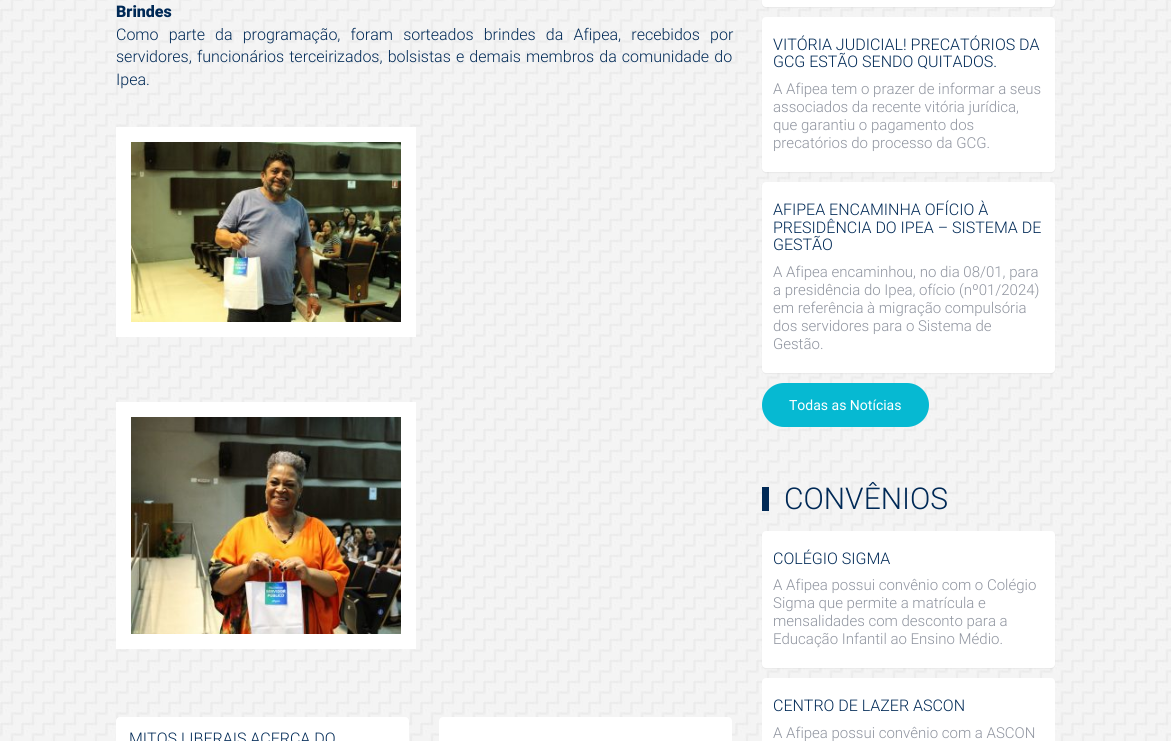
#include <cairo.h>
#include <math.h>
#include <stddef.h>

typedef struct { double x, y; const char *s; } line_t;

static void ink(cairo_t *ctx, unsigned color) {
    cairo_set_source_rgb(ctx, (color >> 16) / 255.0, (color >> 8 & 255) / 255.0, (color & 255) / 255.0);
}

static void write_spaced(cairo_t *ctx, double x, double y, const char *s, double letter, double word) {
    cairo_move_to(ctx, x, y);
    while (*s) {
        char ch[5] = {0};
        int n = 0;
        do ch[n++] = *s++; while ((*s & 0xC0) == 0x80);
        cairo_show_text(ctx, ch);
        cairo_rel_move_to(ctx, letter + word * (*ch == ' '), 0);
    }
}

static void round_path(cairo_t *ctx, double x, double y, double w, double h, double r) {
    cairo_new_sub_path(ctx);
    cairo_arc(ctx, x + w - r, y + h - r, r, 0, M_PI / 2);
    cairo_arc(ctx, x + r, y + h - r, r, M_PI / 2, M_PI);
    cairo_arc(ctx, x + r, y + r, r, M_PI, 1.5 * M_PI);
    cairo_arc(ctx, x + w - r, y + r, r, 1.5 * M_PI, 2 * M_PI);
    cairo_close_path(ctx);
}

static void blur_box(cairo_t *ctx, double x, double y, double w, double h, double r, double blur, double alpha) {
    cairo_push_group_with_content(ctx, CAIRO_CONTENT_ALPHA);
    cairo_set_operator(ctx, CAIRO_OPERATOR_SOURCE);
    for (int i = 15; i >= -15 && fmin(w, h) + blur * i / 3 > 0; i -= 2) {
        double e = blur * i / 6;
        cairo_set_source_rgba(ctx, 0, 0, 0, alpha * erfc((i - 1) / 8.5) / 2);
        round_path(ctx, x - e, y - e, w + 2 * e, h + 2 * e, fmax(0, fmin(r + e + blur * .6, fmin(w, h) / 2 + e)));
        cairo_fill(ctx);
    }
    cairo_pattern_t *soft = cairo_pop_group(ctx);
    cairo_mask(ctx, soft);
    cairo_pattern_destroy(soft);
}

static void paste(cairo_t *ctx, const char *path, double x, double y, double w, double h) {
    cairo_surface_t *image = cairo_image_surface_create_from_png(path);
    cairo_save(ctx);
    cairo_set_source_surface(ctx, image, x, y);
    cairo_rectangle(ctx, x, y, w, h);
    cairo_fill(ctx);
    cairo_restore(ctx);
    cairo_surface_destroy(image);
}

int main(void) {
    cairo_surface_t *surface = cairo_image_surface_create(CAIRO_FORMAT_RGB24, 1171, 741);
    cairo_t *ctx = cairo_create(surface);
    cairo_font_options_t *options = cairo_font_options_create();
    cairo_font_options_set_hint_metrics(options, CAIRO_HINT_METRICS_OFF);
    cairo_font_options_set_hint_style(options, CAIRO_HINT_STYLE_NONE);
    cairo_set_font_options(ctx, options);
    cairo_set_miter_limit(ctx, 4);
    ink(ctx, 0xFFFFFF);
    cairo_paint(ctx);
    paste(ctx, "media/1.png", 0, 0, 1171, 741);
    cairo_select_font_face(ctx, "Roboto Black", CAIRO_FONT_SLANT_NORMAL, CAIRO_FONT_WEIGHT_NORMAL);
    cairo_set_font_size(ctx, 16);
    ink(ctx, 0x002956);
    cairo_move_to(ctx, 116, 17);
    cairo_show_text(ctx, "Brindes");
    cairo_select_font_face(ctx, "Roboto Light", CAIRO_FONT_SLANT_NORMAL, CAIRO_FONT_WEIGHT_NORMAL);
    write_spaced(ctx, 116, 40, "Como parte da programação, foram sorteados brindes da Afipea, recebidos por", 0, 6.25);
    write_spaced(ctx, 116, 62, "servidores, funcionários terceirizados, bolsistas e demais membros da comunidade do", 0, 1.25);
    cairo_move_to(ctx, 116, 85);
    cairo_show_text(ctx, "Ipea.");
    cairo_new_path(ctx);
    cairo_move_to(ctx, 123.5, 134.5);
    cairo_line_to(ctx, 408.5, 134.5);
    cairo_line_to(ctx, 408.5, 329.5);
    cairo_line_to(ctx, 123.5, 329.5);
    cairo_close_path(ctx);
    ink(ctx, 0xFFFFFF);
    cairo_set_line_width(ctx, 15);
    cairo_stroke(ctx);
    paste(ctx, "media/2.png", 131, 142, 270, 180);
    cairo_new_path(ctx);
    cairo_move_to(ctx, 123.5, 409.5);
    cairo_line_to(ctx, 408.5, 409.5);
    cairo_line_to(ctx, 408.5, 641.5);
    cairo_line_to(ctx, 123.5, 641.5);
    cairo_close_path(ctx);
    cairo_stroke(ctx);
    paste(ctx, "media/3.png", 131, 417, 270, 217);
    round_path(ctx, 116, 717, 293, 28, 4);
    cairo_fill(ctx);
    ink(ctx, 0x002956);
    cairo_move_to(ctx, 129, 744);
    cairo_show_text(ctx, "MITOS LIBERAIS ACERCA DO");
    ink(ctx, 0xFFFFFF);
    round_path(ctx, 439, 717, 293, 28, 4);
    cairo_fill(ctx);
    ink(ctx, 0x000000);
    blur_box(ctx, 762, -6, 293, 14, 4, 0.5, 0.05);
    ink(ctx, 0xFFFFFF);
    round_path(ctx, 762, -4, 293, 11, 4);
    cairo_fill(ctx);
    ink(ctx, 0x000000);
    blur_box(ctx, 762, 18, 293, 155, 4, 0.5, 0.05);
    ink(ctx, 0xFFFFFF);
    round_path(ctx, 762, 17, 293, 155, 4);
    cairo_fill(ctx);
    ink(ctx, 0x002956);
    cairo_move_to(ctx, 773, 50);
    cairo_show_text(ctx, "VITÓRIA JUDICIAL! PRECATÓRIOS DA");
    cairo_move_to(ctx, 773, 67);
    cairo_show_text(ctx, "GCG ESTÃO SENDO QUITADOS.");
    cairo_set_font_size(ctx, 15);
    ink(ctx, 0x8F949F);
    {
        static const line_t items[] = {
            {773, 94, "A Afipea tem o prazer de informar a seus"},
            {773, 112, "associados da recente vitória jurídica,"},
            {773, 130, "que garantiu o pagamento dos"},
            {773, 148, "precatórios do processo da GCG."},
        };
        for (size_t i = 0; i < sizeof items / sizeof *items; i++) {
            cairo_move_to(ctx, items[i].x, items[i].y);
            cairo_show_text(ctx, items[i].s);
        }
    }
    ink(ctx, 0x000000);
    blur_box(ctx, 762, 183, 293, 191, 4, 0.5, 0.05);
    ink(ctx, 0xFFFFFF);
    round_path(ctx, 762, 182, 293, 191, 4);
    cairo_fill(ctx);
    cairo_set_font_size(ctx, 16);
    ink(ctx, 0x002956);
    {
        static const line_t items[] = {
            {773, 215, "AFIPEA ENCAMINHA OFÍCIO À"},
            {773, 233, "PRESIDÊNCIA DO IPEA – SISTEMA DE"},
            {773, 250, "GESTÃO"},
        };
        for (size_t i = 0; i < sizeof items / sizeof *items; i++) {
            cairo_move_to(ctx, items[i].x, items[i].y);
            cairo_show_text(ctx, items[i].s);
        }
    }
    cairo_set_font_size(ctx, 15);
    ink(ctx, 0x8F949F);
    {
        static const line_t items[] = {
            {773, 277, "A Afipea encaminhou, no dia 08/01, para"},
            {773, 295, "a presidência do Ipea, ofício (nº01/2024)"},
            {773, 313, "em referência à migração compulsória"},
            {773, 331, "dos servidores para o Sistema de"},
            {773, 349, "Gestão."},
        };
        for (size_t i = 0; i < sizeof items / sizeof *items; i++) {
            cairo_move_to(ctx, items[i].x, items[i].y);
            cairo_show_text(ctx, items[i].s);
        }
    }
    ink(ctx, 0x06B9D2);
    round_path(ctx, 763, 384, 165, 42, 21);
    cairo_fill_preserve(ctx);
    cairo_set_line_width(ctx, 2);
    cairo_stroke(ctx);
    cairo_select_font_face(ctx, "Roboto", CAIRO_FONT_SLANT_NORMAL, CAIRO_FONT_WEIGHT_NORMAL);
    cairo_set_font_size(ctx, 14);
    ink(ctx, 0xFFFFFF);
    cairo_move_to(ctx, 789, 410);
    cairo_show_text(ctx, "Todas as Notícias");
    ink(ctx, 0x002956);
    cairo_rectangle(ctx, 762, 487, 7, 24);
    cairo_fill(ctx);
    cairo_select_font_face(ctx, "Roboto Light", CAIRO_FONT_SLANT_NORMAL, CAIRO_FONT_WEIGHT_NORMAL);
    cairo_set_font_size(ctx, 30);
    cairo_move_to(ctx, 784, 509);
    cairo_show_text(ctx, "CONVÊNIOS");
    ink(ctx, 0x000000);
    blur_box(ctx, 762, 532, 293, 137, 4, 0.5, 0.05);
    ink(ctx, 0xFFFFFF);
    round_path(ctx, 762, 531, 293, 137, 4);
    cairo_fill(ctx);
    cairo_set_font_size(ctx, 16);
    ink(ctx, 0x002956);
    cairo_move_to(ctx, 773, 564);
    cairo_show_text(ctx, "COLÉGIO SIGMA");
    cairo_set_font_size(ctx, 15);
    ink(ctx, 0x8F949F);
    {
        static const line_t items[] = {
            {773, 590, "A Afipea possui convênio com o Colégio"},
            {773, 608, "Sigma que permite a matrícula e"},
            {773, 626, "mensalidades com desconto para a"},
            {773, 644, "Educação Infantil ao Ensino Médio."},
        };
        for (size_t i = 0; i < sizeof items / sizeof *items; i++) {
            cairo_move_to(ctx, items[i].x, items[i].y);
            cairo_show_text(ctx, items[i].s);
        }
    }
    ink(ctx, 0xFFFFFF);
    round_path(ctx, 762, 678, 293, 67, 4);
    cairo_fill(ctx);
    cairo_set_font_size(ctx, 16);
    ink(ctx, 0x002956);
    cairo_move_to(ctx, 773, 711);
    cairo_show_text(ctx, "CENTRO DE LAZER ASCON");
    cairo_set_font_size(ctx, 15);
    ink(ctx, 0x8F949F);
    cairo_move_to(ctx, 773, 738);
    cairo_show_text(ctx, "A Afipea possui convênio com a ASCON");
    cairo_surface_write_to_png(surface, "image.png");
    cairo_font_options_destroy(options);
    cairo_destroy(ctx);
    cairo_surface_destroy(surface);
    return 0;
}
